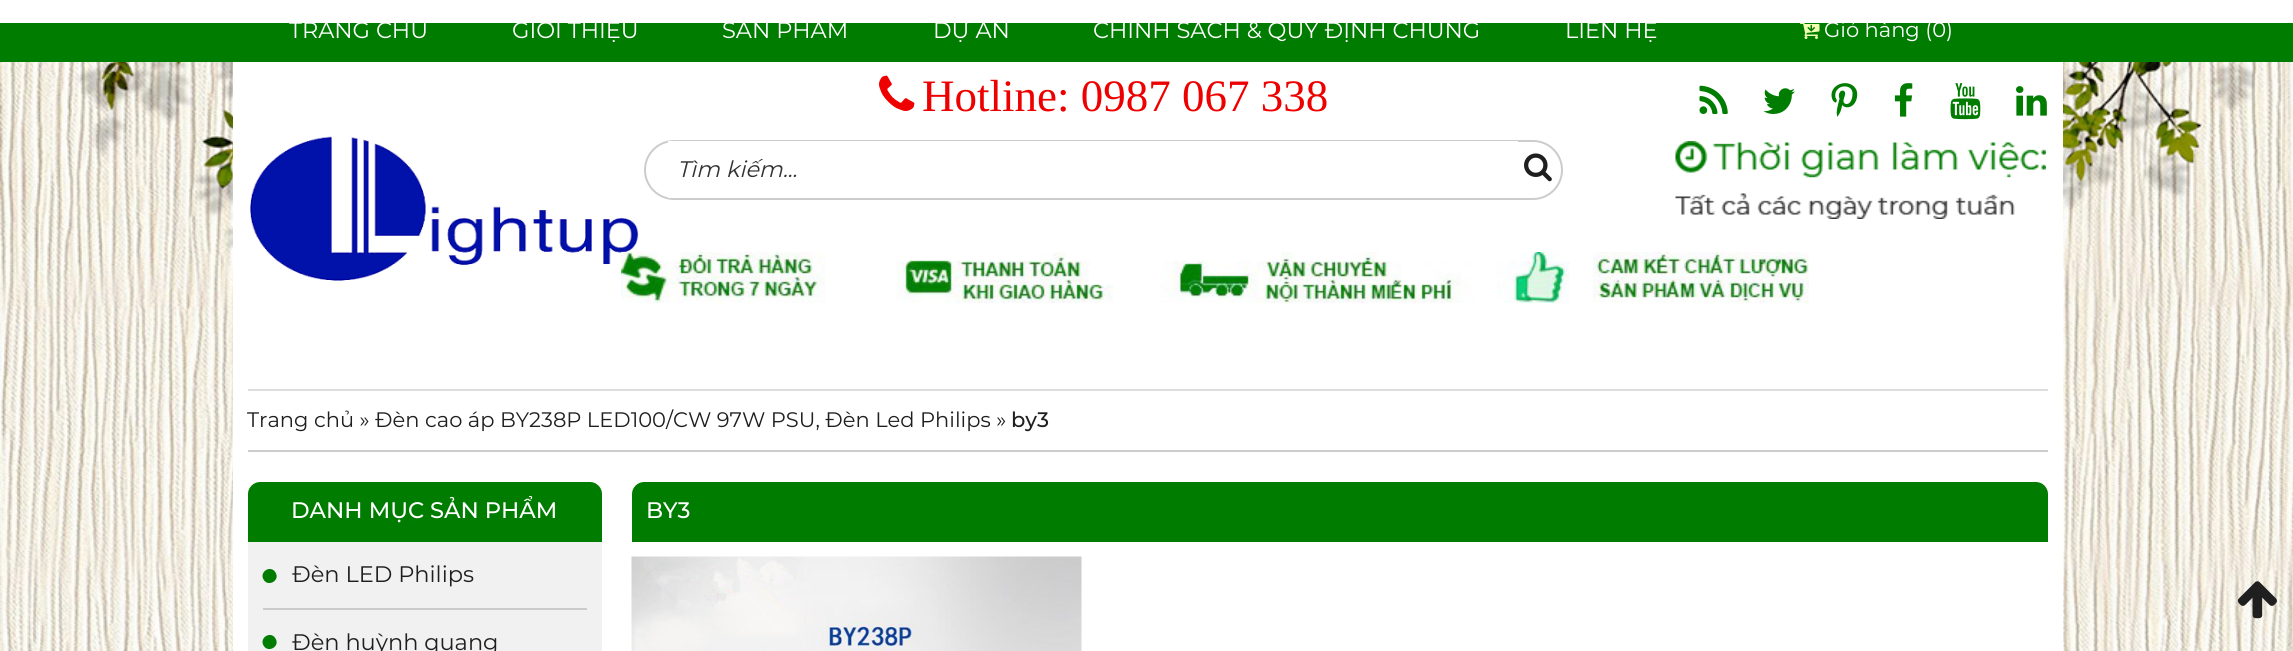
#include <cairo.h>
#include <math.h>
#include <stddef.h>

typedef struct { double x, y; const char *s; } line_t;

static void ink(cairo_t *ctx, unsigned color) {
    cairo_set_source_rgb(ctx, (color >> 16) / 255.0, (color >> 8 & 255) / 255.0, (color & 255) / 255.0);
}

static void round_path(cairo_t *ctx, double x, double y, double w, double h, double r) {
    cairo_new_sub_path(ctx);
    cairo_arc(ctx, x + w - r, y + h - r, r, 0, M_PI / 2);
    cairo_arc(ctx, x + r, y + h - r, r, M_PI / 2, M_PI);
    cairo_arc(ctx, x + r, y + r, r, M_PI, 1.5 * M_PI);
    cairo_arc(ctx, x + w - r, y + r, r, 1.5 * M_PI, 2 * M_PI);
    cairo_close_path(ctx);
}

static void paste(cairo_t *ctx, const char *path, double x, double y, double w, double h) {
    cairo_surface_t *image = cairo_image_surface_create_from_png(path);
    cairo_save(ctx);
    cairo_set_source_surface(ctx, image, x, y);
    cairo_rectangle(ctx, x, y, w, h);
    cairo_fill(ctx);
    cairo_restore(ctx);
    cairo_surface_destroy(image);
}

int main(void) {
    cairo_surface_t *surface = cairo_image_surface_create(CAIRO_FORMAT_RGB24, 2293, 651);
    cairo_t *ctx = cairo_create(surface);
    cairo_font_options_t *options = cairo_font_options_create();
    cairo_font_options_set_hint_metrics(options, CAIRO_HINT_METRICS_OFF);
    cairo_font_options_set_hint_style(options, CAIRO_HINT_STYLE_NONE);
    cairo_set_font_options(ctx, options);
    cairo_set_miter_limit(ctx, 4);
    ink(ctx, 0xFFFFFF);
    cairo_paint(ctx);
    paste(ctx, "media/1.png", 0, 62, 2293, 589);
    ink(ctx, 0xFFFFFF);
    cairo_rectangle(ctx, 233, 62, 1830, 589);
    cairo_fill(ctx);
    ink(ctx, 0x007C00);
    cairo_rectangle(ctx, 0, 23, 2293, 39);
    cairo_fill(ctx);
    cairo_select_font_face(ctx, "Montserrat", CAIRO_FONT_SLANT_NORMAL, CAIRO_FONT_WEIGHT_NORMAL);
    cairo_set_font_size(ctx, 22.5);
    ink(ctx, 0xFFFFFF);
    {
        static const line_t items[] = {
            {289, 38, "TRANG CHỦ"},
            {512, 38, "GIỚI THIỆU"},
            {722, 38, "SẢN PHẨM"},
            {933, 38, "DỰ ÁN"},
            {1093, 38, "CHÍNH SÁCH & QUY ĐỊNH CHUNG"},
            {1565, 38, "LIÊN HỆ"},
        };
        for (size_t i = 0; i < sizeof items / sizeof *items; i++) {
            cairo_move_to(ctx, items[i].x, items[i].y);
            cairo_show_text(ctx, items[i].s);
        }
    }
    paste(ctx, "media/2.png", 1800, 23, 20, 16);
    cairo_set_font_size(ctx, 21);
    cairo_move_to(ctx, 1824, 37);
    cairo_show_text(ctx, "Giỏ hàng (0)");
    paste(ctx, "media/3.png", 250, 136, 389, 145);
    paste(ctx, "media/4.png", 879, 75, 36, 36);
    cairo_select_font_face(ctx, "Liberation Serif", CAIRO_FONT_SLANT_NORMAL, CAIRO_FONT_WEIGHT_NORMAL);
    cairo_set_font_size(ctx, 45);
    ink(ctx, 0xEF0000);
    cairo_move_to(ctx, 922, 111);
    cairo_show_text(ctx, "Hotline: 0987 067 338");
    round_path(ctx, 645, 141, 917, 58, 29);
    ink(ctx, 0xCCCCCC);
    cairo_stroke(ctx);
    ink(ctx, 0xFFFFFF);
    cairo_rectangle(ctx, 668, 141, 850, 57);
    cairo_fill(ctx);
    cairo_select_font_face(ctx, "Montserrat", CAIRO_FONT_SLANT_ITALIC, CAIRO_FONT_WEIGHT_NORMAL);
    cairo_set_font_size(ctx, 22.5);
    ink(ctx, 0x333333);
    cairo_move_to(ctx, 677, 177);
    cairo_show_text(ctx, "Tìm kiếm...");
    paste(ctx, "media/5.png", 1524, 153, 28, 29);
    paste(ctx, "media/6.png", 1699, 85, 29, 29);
    paste(ctx, "media/7.png", 1763, 88, 32, 26);
    paste(ctx, "media/8.png", 1831, 83, 27, 34);
    paste(ctx, "media/9.png", 1894, 83, 19, 34);
    paste(ctx, "media/10.png", 1950, 83, 31, 37);
    paste(ctx, "media/11.png", 2016, 86, 31, 30);
    paste(ctx, "media/12.png", 1675, 141, 371, 78);
    paste(ctx, "media/13.png", 621, 252, 1188, 51);
    ink(ctx, 0xDDDDDD);
    cairo_rectangle(ctx, 248, 389, 1800, 2);
    cairo_fill(ctx);
    ink(ctx, 0xCCCCCC);
    cairo_rectangle(ctx, 248, 450, 1800, 2);
    cairo_fill(ctx);
    cairo_select_font_face(ctx, "Montserrat", CAIRO_FONT_SLANT_NORMAL, CAIRO_FONT_WEIGHT_NORMAL);
    cairo_set_font_size(ctx, 21);
    ink(ctx, 0x1F1F1F);
    cairo_move_to(ctx, 247, 427);
    cairo_show_text(ctx, "Trang chủ » Đèn cao áp BY238P LED100/CW 97W PSU, Đèn Led Philips »");
    cairo_select_font_face(ctx, "Montserrat Medium", CAIRO_FONT_SLANT_NORMAL, CAIRO_FONT_WEIGHT_NORMAL);
    cairo_move_to(ctx, 1011, 427);
    cairo_show_text(ctx, "by3");
    ink(ctx, 0xF1F1F1);
    cairo_new_path(ctx);
    cairo_move_to(ctx, 260, 482);
    cairo_line_to(ctx, 590, 482);
    cairo_curve_to(ctx, 596.5, 482, 602, 487.5, 602, 494);
    cairo_line_to(ctx, 602, 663);
    cairo_line_to(ctx, 248, 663);
    cairo_line_to(ctx, 248, 494);
    cairo_curve_to(ctx, 248, 487.5, 253.5, 482, 260, 482);
    cairo_close_path(ctx);
    cairo_fill(ctx);
    ink(ctx, 0x007C00);
    cairo_new_path(ctx);
    cairo_move_to(ctx, 260, 482);
    cairo_line_to(ctx, 590, 482);
    cairo_curve_to(ctx, 596.5, 482, 602, 487.5, 602, 494);
    cairo_line_to(ctx, 602, 542);
    cairo_line_to(ctx, 248, 542);
    cairo_line_to(ctx, 248, 494);
    cairo_curve_to(ctx, 248, 487.5, 253.5, 482, 260, 482);
    cairo_close_path(ctx);
    cairo_fill(ctx);
    cairo_set_font_size(ctx, 22.5);
    ink(ctx, 0xFFFFFF);
    cairo_move_to(ctx, 291, 518);
    cairo_show_text(ctx, "DANH MỤC SẢN PHẨM");
    ink(ctx, 0x007C00);
    cairo_new_path(ctx);
    cairo_move_to(ctx, 275.5, 572.5);
    cairo_curve_to(ctx, 280.5, 580.5, 268, 587.5, 263.5, 579.5);
    cairo_curve_to(ctx, 259, 571.5, 271, 564.5, 275.5, 572.5);
    cairo_close_path(ctx);
    cairo_fill(ctx);
    cairo_select_font_face(ctx, "Montserrat", CAIRO_FONT_SLANT_NORMAL, CAIRO_FONT_WEIGHT_NORMAL);
    ink(ctx, 0x1F1F1F);
    cairo_move_to(ctx, 292, 582);
    cairo_show_text(ctx, "Đèn LED Philips");
    ink(ctx, 0x007C00);
    cairo_new_path(ctx);
    cairo_move_to(ctx, 275.5, 638.5);
    cairo_curve_to(ctx, 280.5, 646.5, 268, 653.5, 263.5, 645.5);
    cairo_curve_to(ctx, 259, 637.5, 271, 630.5, 275.5, 638.5);
    cairo_close_path(ctx);
    cairo_fill(ctx);
    ink(ctx, 0xCCCCCC);
    cairo_rectangle(ctx, 263, 608, 324, 2);
    cairo_fill(ctx);
    ink(ctx, 0x1F1F1F);
    cairo_move_to(ctx, 292, 650);
    cairo_show_text(ctx, "Đèn huỳnh quang");
    ink(ctx, 0x007C00);
    cairo_new_path(ctx);
    cairo_move_to(ctx, 644, 482);
    cairo_line_to(ctx, 2036, 482);
    cairo_curve_to(ctx, 2042.5, 482, 2048, 487.5, 2048, 494);
    cairo_line_to(ctx, 2048, 542);
    cairo_line_to(ctx, 632, 542);
    cairo_line_to(ctx, 632, 494);
    cairo_curve_to(ctx, 632, 487.5, 637.5, 482, 644, 482);
    cairo_close_path(ctx);
    cairo_fill(ctx);
    cairo_select_font_face(ctx, "Montserrat Medium", CAIRO_FONT_SLANT_NORMAL, CAIRO_FONT_WEIGHT_NORMAL);
    ink(ctx, 0xFFFFFF);
    cairo_move_to(ctx, 646, 518);
    cairo_show_text(ctx, "BY3");
    paste(ctx, "media/14.png", 631, 556, 451, 95);
    paste(ctx, "media/15.png", 2237, 581, 40, 38);
    cairo_surface_write_to_png(surface, "image.png");
    cairo_font_options_destroy(options);
    cairo_destroy(ctx);
    cairo_surface_destroy(surface);
    return 0;
}
